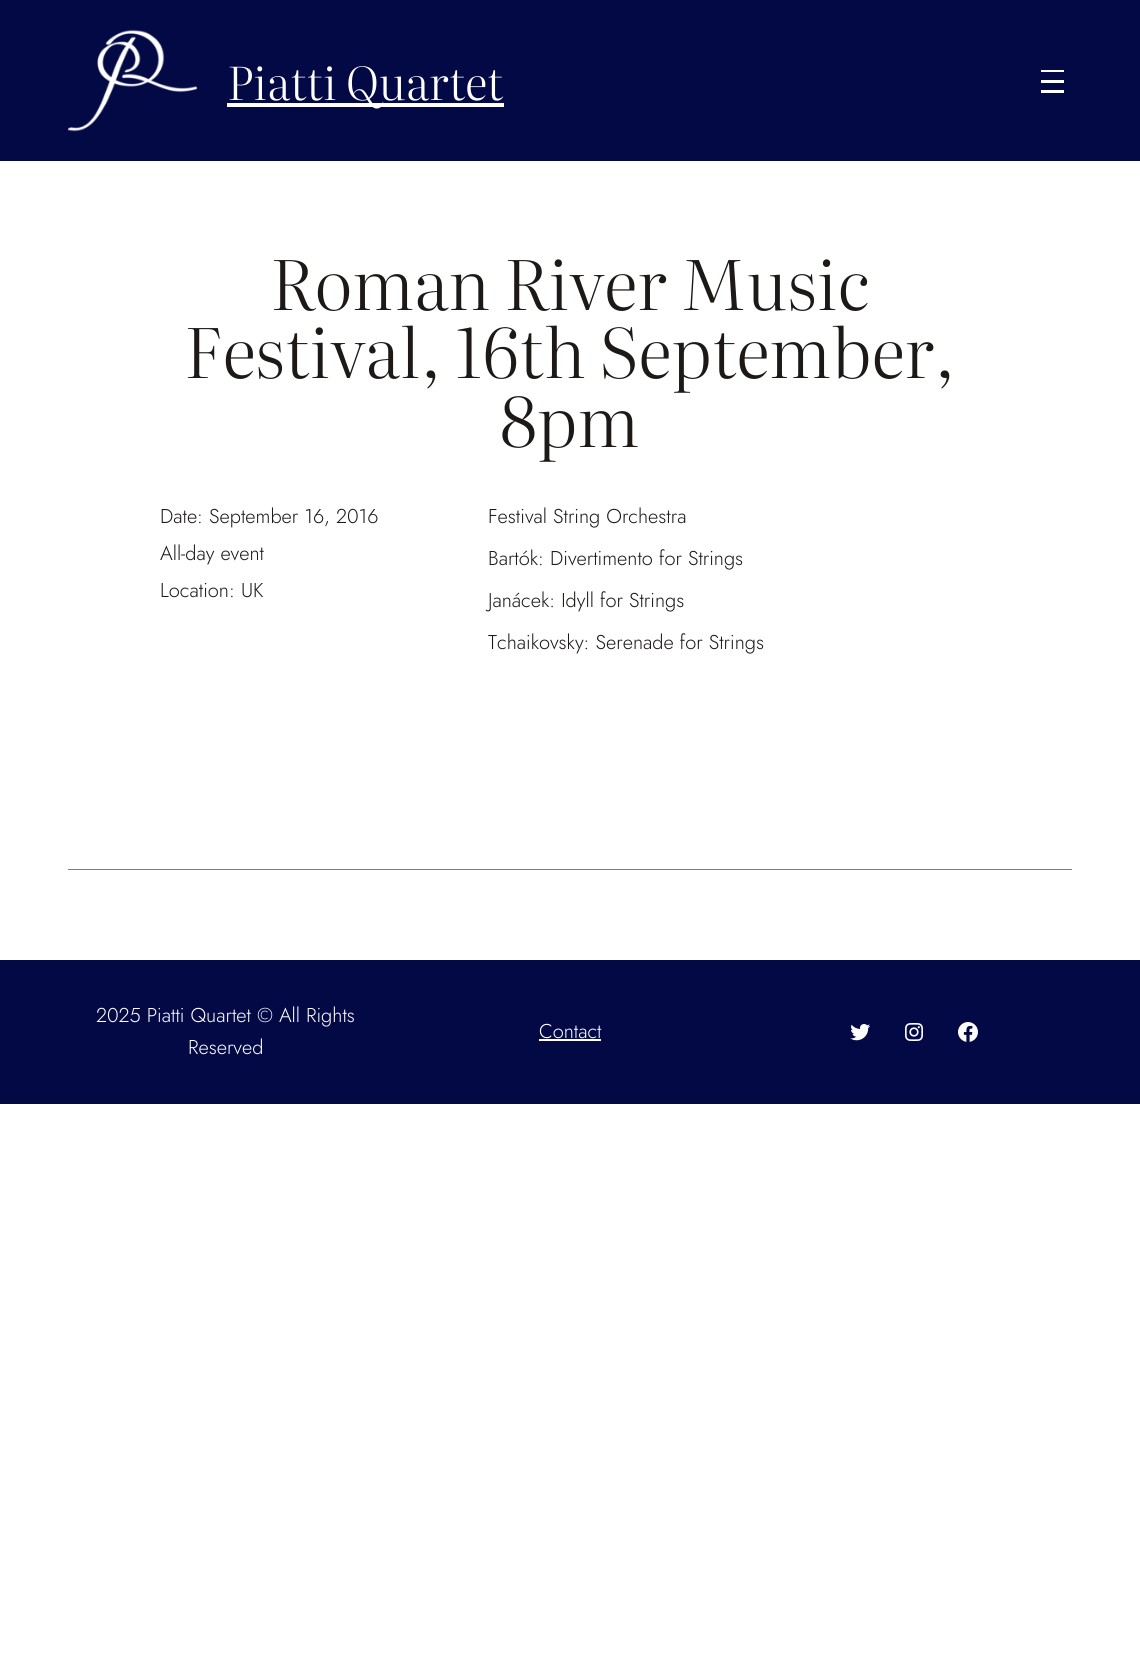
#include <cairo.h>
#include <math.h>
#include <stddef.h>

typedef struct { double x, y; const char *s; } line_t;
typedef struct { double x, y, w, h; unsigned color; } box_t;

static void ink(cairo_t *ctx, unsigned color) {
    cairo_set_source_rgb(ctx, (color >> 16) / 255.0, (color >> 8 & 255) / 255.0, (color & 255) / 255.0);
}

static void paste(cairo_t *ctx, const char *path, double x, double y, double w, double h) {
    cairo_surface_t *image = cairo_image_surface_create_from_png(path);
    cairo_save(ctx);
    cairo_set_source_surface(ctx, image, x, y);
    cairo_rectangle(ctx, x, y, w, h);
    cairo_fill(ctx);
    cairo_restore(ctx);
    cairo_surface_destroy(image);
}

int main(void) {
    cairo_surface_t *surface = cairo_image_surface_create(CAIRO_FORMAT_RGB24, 1140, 1655);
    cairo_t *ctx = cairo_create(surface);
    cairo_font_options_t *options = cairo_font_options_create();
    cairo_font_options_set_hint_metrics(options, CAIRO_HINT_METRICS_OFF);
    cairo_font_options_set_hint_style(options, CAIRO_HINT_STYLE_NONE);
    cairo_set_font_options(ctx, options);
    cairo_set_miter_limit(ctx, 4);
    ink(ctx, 0xFFFFFF);
    cairo_paint(ctx);
    ink(ctx, 0x030945);
    cairo_rectangle(ctx, 0, 0, 1140, 161);
    cairo_fill(ctx);
    paste(ctx, "media/1.png", 68, 29, 129, 103);
    ink(ctx, 0xFFFFFF);
    cairo_rectangle(ctx, 227, 103, 277, 4);
    cairo_fill(ctx);
    cairo_select_font_face(ctx, "Literata Light", CAIRO_FONT_SLANT_NORMAL, CAIRO_FONT_WEIGHT_NORMAL);
    cairo_set_font_size(ctx, 45.5);
    cairo_move_to(ctx, 227, 100);
    cairo_show_text(ctx, "Piatti Quartet");
    {
        static const box_t items[] = {
            {1041, 70, 23, 2, 0xFFFFFF},
            {1041, 80, 23, 3, 0xFFFFFF},
            {1041, 90, 23, 3, 0xFFFFFF},
        };
        for (size_t i = 0; i < sizeof items / sizeof *items; i++) {
            ink(ctx, items[i].color);
            cairo_rectangle(ctx, items[i].x, items[i].y, items[i].w, items[i].h);
            cairo_fill(ctx);
        }
    }
    cairo_set_font_size(ctx, 68.4);
    ink(ctx, 0x1C1917);
    {
        static const line_t items[] = {
            {270, 310, "Roman River Music"},
            {184, 378, "Festival, 16th September,"},
            {500, 447, "8pm"},
        };
        for (size_t i = 0; i < sizeof items / sizeof *items; i++) {
            cairo_move_to(ctx, items[i].x, items[i].y);
            cairo_show_text(ctx, items[i].s);
        }
    }
    cairo_select_font_face(ctx, "Jost Light", CAIRO_FONT_SLANT_NORMAL, CAIRO_FONT_WEIGHT_NORMAL);
    cairo_set_font_size(ctx, 20);
    {
        static const line_t items[] = {
            {160, 523, "Date: September 16, 2016"},
            {160, 560, "All-day event"},
            {160, 597, "Location: UK"},
            {488, 523, "Festival String Orchestra"},
            {488, 565, "Bartók: Divertimento for Strings"},
            {488, 607, "Janácek: Idyll for Strings"},
            {488, 649, "Tchaikovsky: Serenade for Strings"},
        };
        for (size_t i = 0; i < sizeof items / sizeof *items; i++) {
            cairo_move_to(ctx, items[i].x, items[i].y);
            cairo_show_text(ctx, items[i].s);
        }
    }
    ink(ctx, 0x808080);
    cairo_rectangle(ctx, 68, 869, 1004, 1);
    cairo_fill(ctx);
    ink(ctx, 0x030945);
    cairo_rectangle(ctx, 0, 960, 1140, 144);
    cairo_fill(ctx);
    ink(ctx, 0xFFFFFF);
    {
        static const line_t items[] = {
            {96, 1022, "2025 Piatti Quartet © All Rights"},
            {188, 1054, "Reserved"},
            {539, 1038, "Contact"},
        };
        for (size_t i = 0; i < sizeof items / sizeof *items; i++) {
            cairo_move_to(ctx, items[i].x, items[i].y);
            cairo_show_text(ctx, items[i].s);
        }
    }
    cairo_rectangle(ctx, 539, 1039, 62, 2);
    cairo_fill(ctx);
    paste(ctx, "media/2.png", 850, 1024, 20, 17);
    paste(ctx, "media/3.png", 905, 1023, 18, 18);
    paste(ctx, "media/4.png", 958, 1022, 20, 20);
    cairo_surface_write_to_png(surface, "image.png");
    cairo_font_options_destroy(options);
    cairo_destroy(ctx);
    cairo_surface_destroy(surface);
    return 0;
}
